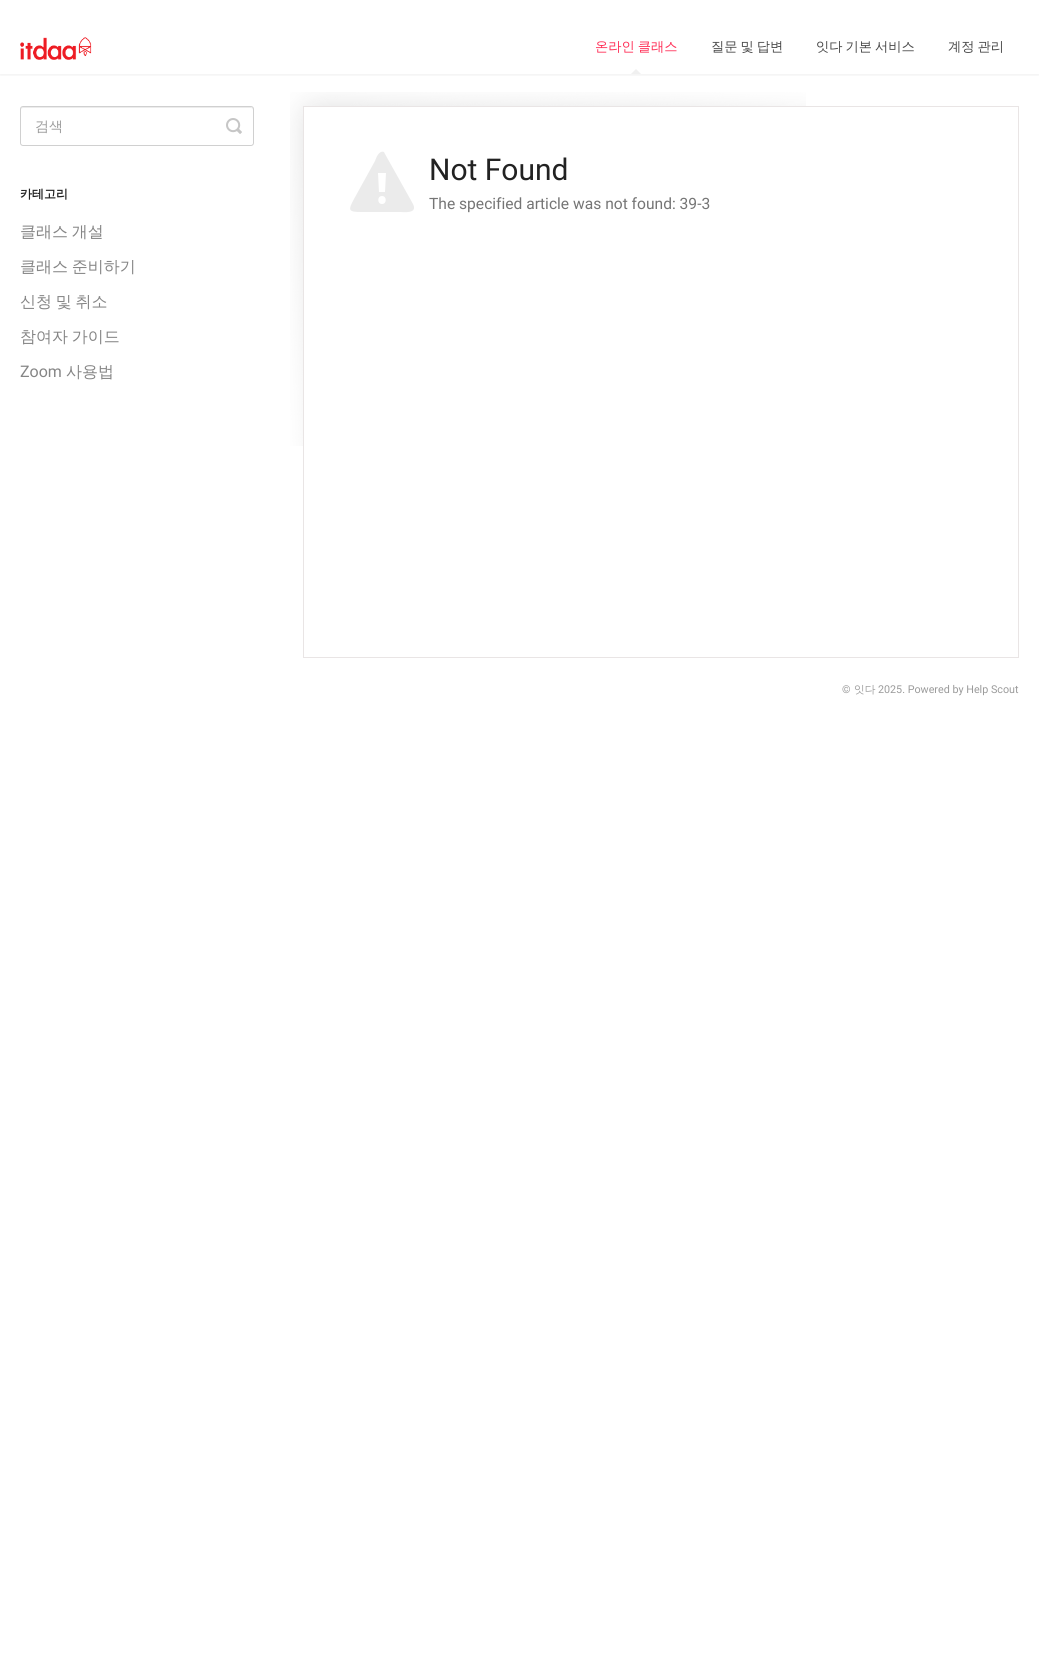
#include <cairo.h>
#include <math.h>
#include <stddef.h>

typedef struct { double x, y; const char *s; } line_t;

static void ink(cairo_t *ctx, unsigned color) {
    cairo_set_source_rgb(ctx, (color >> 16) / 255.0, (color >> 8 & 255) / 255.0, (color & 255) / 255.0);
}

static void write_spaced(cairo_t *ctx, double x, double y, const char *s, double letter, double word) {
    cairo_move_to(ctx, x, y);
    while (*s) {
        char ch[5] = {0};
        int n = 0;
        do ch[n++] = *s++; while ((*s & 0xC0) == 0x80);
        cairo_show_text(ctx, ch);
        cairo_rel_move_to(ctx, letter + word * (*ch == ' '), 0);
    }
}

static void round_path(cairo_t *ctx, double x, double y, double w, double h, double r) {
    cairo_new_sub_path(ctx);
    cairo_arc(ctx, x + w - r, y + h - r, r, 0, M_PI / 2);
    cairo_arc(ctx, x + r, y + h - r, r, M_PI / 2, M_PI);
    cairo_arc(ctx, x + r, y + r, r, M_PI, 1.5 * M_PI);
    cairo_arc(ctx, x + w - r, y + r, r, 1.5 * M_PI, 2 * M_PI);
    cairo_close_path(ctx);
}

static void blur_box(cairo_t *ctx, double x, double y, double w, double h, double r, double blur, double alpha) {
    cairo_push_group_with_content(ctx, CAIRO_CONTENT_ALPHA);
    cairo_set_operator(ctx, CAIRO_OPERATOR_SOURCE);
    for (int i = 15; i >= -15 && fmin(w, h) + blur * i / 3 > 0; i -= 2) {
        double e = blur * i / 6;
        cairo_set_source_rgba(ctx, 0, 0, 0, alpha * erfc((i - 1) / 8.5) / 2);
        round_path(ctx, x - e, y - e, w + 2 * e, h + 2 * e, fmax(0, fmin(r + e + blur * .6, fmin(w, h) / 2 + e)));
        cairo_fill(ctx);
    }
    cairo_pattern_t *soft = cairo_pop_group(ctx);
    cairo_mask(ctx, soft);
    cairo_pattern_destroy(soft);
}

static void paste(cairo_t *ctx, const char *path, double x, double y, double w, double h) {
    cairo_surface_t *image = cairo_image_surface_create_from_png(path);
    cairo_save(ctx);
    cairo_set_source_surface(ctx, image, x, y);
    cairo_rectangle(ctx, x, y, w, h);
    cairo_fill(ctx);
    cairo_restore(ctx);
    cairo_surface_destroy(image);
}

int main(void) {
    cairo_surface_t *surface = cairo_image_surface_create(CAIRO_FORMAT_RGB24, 1039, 1674);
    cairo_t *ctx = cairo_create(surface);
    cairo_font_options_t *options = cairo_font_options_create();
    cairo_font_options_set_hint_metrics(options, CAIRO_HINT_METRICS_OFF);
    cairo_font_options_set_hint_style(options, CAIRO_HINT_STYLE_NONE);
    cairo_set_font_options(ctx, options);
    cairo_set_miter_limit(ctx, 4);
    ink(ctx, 0xFFFFFF);
    cairo_paint(ctx);
    cairo_save(ctx);
    cairo_rectangle(ctx, 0, 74, 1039, 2);
    cairo_clip(ctx);
    ink(ctx, 0x000000);
    blur_box(ctx, 0, 1, 1039, 74, 0, 2, 0.07);
    cairo_restore(ctx);
    paste(ctx, "media/1.png", 20, 37, 72, 23);
    cairo_select_font_face(ctx, "WenQuanYi Zen Hei Medium", CAIRO_FONT_SLANT_NORMAL, CAIRO_FONT_WEIGHT_NORMAL);
    cairo_set_font_size(ctx, 13.25);
    ink(ctx, 0xFF2D55);
    write_spaced(ctx, 595, 51, "온라인 클래스", 0, -1);
    ink(ctx, 0xF0F0F0);
    cairo_new_path(ctx);
    cairo_move_to(ctx, 641, 74);
    cairo_line_to(ctx, 631, 74);
    cairo_line_to(ctx, 636, 69);
    cairo_close_path(ctx);
    cairo_fill(ctx);
    ink(ctx, 0x484848);
    {
        static const line_t items[] = {
            {711, 51, "질문 및 답변"},
            {816, 51, "잇다 기본 서비스"},
            {948, 51, "계정 관리"},
        };
        for (size_t i = 0; i < sizeof items / sizeof *items; i++) {
            write_spaced(ctx, items[i].x, items[i].y, items[i].s, 0, -1);
        }
    }
    ink(ctx, 0xECECEC);
    cairo_new_path(ctx);
    cairo_move_to(ctx, 23, 108);
    cairo_line_to(ctx, 251, 108);
    cairo_curve_to(ctx, 252, 108, 253, 109, 253, 110);
    cairo_line_to(ctx, 253, 108);
    cairo_line_to(ctx, 251, 107);
    cairo_line_to(ctx, 23, 107);
    cairo_curve_to(ctx, 21, 107, 21, 109, 21, 110);
    cairo_curve_to(ctx, 21, 109, 22, 108, 23, 108);
    cairo_close_path(ctx);
    cairo_fill(ctx);
    round_path(ctx, 20.5, 106.5, 233, 39, 2.5);
    ink(ctx, 0xD0D0D0);
    cairo_set_line_width(ctx, 1);
    cairo_stroke(ctx);
    cairo_set_font_size(ctx, 14);
    ink(ctx, 0x9B9B9B);
    cairo_move_to(ctx, 35, 131);
    cairo_show_text(ctx, "검색");
    paste(ctx, "media/2.png", 226, 118, 16, 16);
    cairo_select_font_face(ctx, "WenQuanYi Zen Hei", CAIRO_FONT_SLANT_NORMAL, CAIRO_FONT_WEIGHT_BOLD);
    cairo_set_font_size(ctx, 12);
    ink(ctx, 0x222222);
    cairo_move_to(ctx, 20, 198);
    cairo_show_text(ctx, "카테고리");
    cairo_select_font_face(ctx, "WenQuanYi Zen Hei Medium", CAIRO_FONT_SLANT_NORMAL, CAIRO_FONT_WEIGHT_NORMAL);
    cairo_set_font_size(ctx, 16);
    ink(ctx, 0x858585);
    {
        static const line_t items[] = {
            {20, 237, "클래스 개설"},
            {20, 272, "클래스 준비하기"},
            {20, 307, "신청 및 취소"},
            {20, 342, "참여자 가이드"},
        };
        for (size_t i = 0; i < sizeof items / sizeof *items; i++) {
            write_spaced(ctx, items[i].x, items[i].y, items[i].s, 0, -1);
        }
    }
    cairo_select_font_face(ctx, "Roboto", CAIRO_FONT_SLANT_NORMAL, CAIRO_FONT_WEIGHT_NORMAL);
    cairo_move_to(ctx, 20, 377);
    cairo_show_text(ctx, "Zoom");
    cairo_select_font_face(ctx, "WenQuanYi Zen Hei Medium", CAIRO_FONT_SLANT_NORMAL, CAIRO_FONT_WEIGHT_NORMAL);
    cairo_move_to(ctx, 66, 377);
    cairo_show_text(ctx, "사용법");
    paste(ctx, "media/3.png", 290, 92, 516, 354);
    cairo_rectangle(ctx, 303.5, 106.5, 715, 551);
    ink(ctx, 0xE9E5E5);
    cairo_stroke(ctx);
    ink(ctx, 0xEBEBEB);
    cairo_new_path(ctx);
    cairo_move_to(ctx, 413, 204);
    cairo_line_to(ctx, 385, 154);
    cairo_line_to(ctx, 384, 152);
    cairo_curve_to(ctx, 379, 150, 376, 158, 375, 161);
    cairo_line_to(ctx, 354, 199);
    cairo_curve_to(ctx, 348, 210, 348, 212, 361, 212);
    cairo_line_to(ctx, 400, 212);
    cairo_curve_to(ctx, 404, 212, 418, 214, 413, 204);
    cairo_close_path(ctx);
    cairo_move_to(ctx, 386, 173);
    cairo_line_to(ctx, 385, 192);
    cairo_line_to(ctx, 379, 192);
    cairo_line_to(ctx, 378, 173);
    cairo_close_path(ctx);
    cairo_move_to(ctx, 382, 204);
    cairo_curve_to(ctx, 377, 204, 377, 196, 382, 196);
    cairo_curve_to(ctx, 387, 196, 387, 204, 382, 204);
    cairo_close_path(ctx);
    cairo_fill(ctx);
    cairo_select_font_face(ctx, "Roboto", CAIRO_FONT_SLANT_NORMAL, CAIRO_FONT_WEIGHT_NORMAL);
    cairo_set_font_size(ctx, 30);
    ink(ctx, 0x222222);
    cairo_move_to(ctx, 429, 180);
    cairo_show_text(ctx, "Not Found");
    cairo_set_font_size(ctx, 15.6);
    ink(ctx, 0x757575);
    cairo_move_to(ctx, 429, 209);
    cairo_show_text(ctx, "The specified article was not found: 39-3");
    cairo_set_font_size(ctx, 10.75);
    ink(ctx, 0x9B9B9B);
    cairo_move_to(ctx, 842, 693);
    cairo_show_text(ctx, "©");
    cairo_select_font_face(ctx, "WenQuanYi Zen Hei Medium", CAIRO_FONT_SLANT_NORMAL, CAIRO_FONT_WEIGHT_NORMAL);
    cairo_move_to(ctx, 854, 693);
    cairo_show_text(ctx, "잇다");
    cairo_select_font_face(ctx, "Roboto", CAIRO_FONT_SLANT_NORMAL, CAIRO_FONT_WEIGHT_NORMAL);
    cairo_move_to(ctx, 878, 693);
    cairo_show_text(ctx, "2025. Powered by Help Scout");
    cairo_surface_write_to_png(surface, "image.png");
    cairo_font_options_destroy(options);
    cairo_destroy(ctx);
    cairo_surface_destroy(surface);
    return 0;
}
